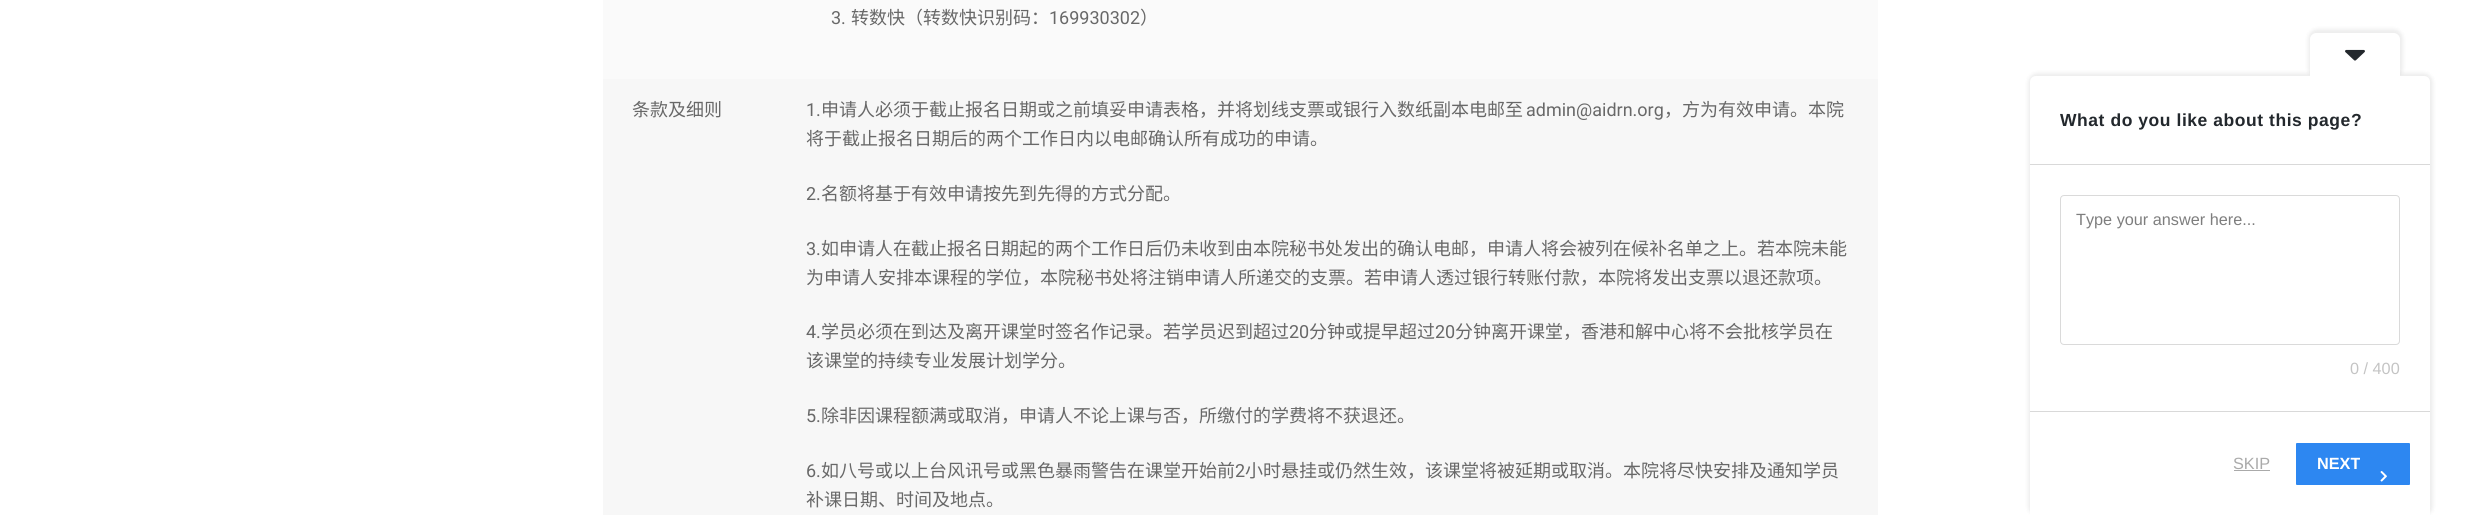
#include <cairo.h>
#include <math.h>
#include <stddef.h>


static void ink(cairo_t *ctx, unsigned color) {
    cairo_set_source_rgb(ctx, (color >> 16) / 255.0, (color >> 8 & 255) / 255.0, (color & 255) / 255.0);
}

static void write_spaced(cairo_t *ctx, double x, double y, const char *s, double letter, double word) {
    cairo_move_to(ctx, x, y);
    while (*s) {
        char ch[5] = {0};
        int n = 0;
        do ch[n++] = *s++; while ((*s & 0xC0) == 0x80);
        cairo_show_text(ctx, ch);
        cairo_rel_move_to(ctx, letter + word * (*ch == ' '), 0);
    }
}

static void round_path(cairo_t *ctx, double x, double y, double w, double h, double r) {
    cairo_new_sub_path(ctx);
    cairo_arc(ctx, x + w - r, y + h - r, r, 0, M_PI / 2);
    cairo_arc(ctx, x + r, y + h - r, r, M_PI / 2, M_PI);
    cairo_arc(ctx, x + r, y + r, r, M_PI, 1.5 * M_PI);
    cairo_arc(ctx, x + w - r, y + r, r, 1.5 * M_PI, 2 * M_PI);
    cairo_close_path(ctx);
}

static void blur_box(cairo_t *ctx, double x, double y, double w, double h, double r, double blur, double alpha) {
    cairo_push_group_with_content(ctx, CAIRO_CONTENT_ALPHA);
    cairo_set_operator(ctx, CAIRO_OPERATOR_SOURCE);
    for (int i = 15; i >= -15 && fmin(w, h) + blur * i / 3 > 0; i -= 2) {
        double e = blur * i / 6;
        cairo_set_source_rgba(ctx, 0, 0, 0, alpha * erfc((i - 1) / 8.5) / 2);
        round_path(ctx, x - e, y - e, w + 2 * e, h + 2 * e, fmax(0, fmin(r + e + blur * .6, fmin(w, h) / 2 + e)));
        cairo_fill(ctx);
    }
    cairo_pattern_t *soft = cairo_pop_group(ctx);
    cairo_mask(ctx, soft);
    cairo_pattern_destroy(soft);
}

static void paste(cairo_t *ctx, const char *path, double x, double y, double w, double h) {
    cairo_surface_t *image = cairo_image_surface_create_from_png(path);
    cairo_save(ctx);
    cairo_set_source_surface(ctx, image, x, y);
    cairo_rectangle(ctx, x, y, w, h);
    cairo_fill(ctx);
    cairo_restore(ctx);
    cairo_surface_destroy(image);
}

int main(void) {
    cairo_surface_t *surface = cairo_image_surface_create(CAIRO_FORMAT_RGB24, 2479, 515);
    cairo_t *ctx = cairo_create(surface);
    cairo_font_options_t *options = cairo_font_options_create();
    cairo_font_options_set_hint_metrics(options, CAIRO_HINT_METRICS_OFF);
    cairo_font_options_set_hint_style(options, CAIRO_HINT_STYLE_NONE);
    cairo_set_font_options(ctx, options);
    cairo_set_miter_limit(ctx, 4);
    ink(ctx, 0xFFFFFF);
    cairo_paint(ctx);
    ink(ctx, 0xFAFAFA);
    cairo_rectangle(ctx, 603, 0, 1275, 79);
    cairo_fill(ctx);
    cairo_select_font_face(ctx, "Roboto", CAIRO_FONT_SLANT_NORMAL, CAIRO_FONT_WEIGHT_NORMAL);
    cairo_set_font_size(ctx, 18);
    ink(ctx, 0x686868);
    cairo_move_to(ctx, 831, 24);
    cairo_show_text(ctx, "3.");
    cairo_select_font_face(ctx, "Noto Sans CJK SC", CAIRO_FONT_SLANT_NORMAL, CAIRO_FONT_WEIGHT_NORMAL);
    cairo_move_to(ctx, 851, 24);
    cairo_show_text(ctx, "转数快（转数快识别码：");
    cairo_select_font_face(ctx, "Roboto", CAIRO_FONT_SLANT_NORMAL, CAIRO_FONT_WEIGHT_NORMAL);
    cairo_move_to(ctx, 1049, 24);
    cairo_show_text(ctx, "169930302");
    cairo_select_font_face(ctx, "Noto Sans CJK SC", CAIRO_FONT_SLANT_NORMAL, CAIRO_FONT_WEIGHT_NORMAL);
    cairo_move_to(ctx, 1140, 24);
    cairo_show_text(ctx, "）");
    ink(ctx, 0xF7F7F7);
    cairo_rectangle(ctx, 603, 79, 1275, 436);
    cairo_fill(ctx);
    ink(ctx, 0x686868);
    cairo_move_to(ctx, 632, 116);
    cairo_show_text(ctx, "条款及细则");
    cairo_select_font_face(ctx, "Roboto", CAIRO_FONT_SLANT_NORMAL, CAIRO_FONT_WEIGHT_NORMAL);
    cairo_move_to(ctx, 806, 116);
    cairo_show_text(ctx, "1.");
    cairo_select_font_face(ctx, "Noto Sans CJK SC", CAIRO_FONT_SLANT_NORMAL, CAIRO_FONT_WEIGHT_NORMAL);
    cairo_move_to(ctx, 821, 116);
    cairo_show_text(ctx, "申请人必须于截止报名日期或之前填妥申请表格，并将划线支票或银行入数纸副本电邮至");
    cairo_select_font_face(ctx, "Roboto", CAIRO_FONT_SLANT_NORMAL, CAIRO_FONT_WEIGHT_NORMAL);
    cairo_move_to(ctx, 1526, 116);
    cairo_show_text(ctx, "admin@aidrn.org");
    cairo_select_font_face(ctx, "Noto Sans CJK SC", CAIRO_FONT_SLANT_NORMAL, CAIRO_FONT_WEIGHT_NORMAL);
    cairo_move_to(ctx, 1664, 116);
    cairo_show_text(ctx, "，方为有效申请。本院");
    cairo_move_to(ctx, 806, 145);
    cairo_show_text(ctx, "将于截止报名日期后的两个工作日内以电邮确认所有成功的申请。");
    cairo_select_font_face(ctx, "Roboto", CAIRO_FONT_SLANT_NORMAL, CAIRO_FONT_WEIGHT_NORMAL);
    cairo_move_to(ctx, 806, 200);
    cairo_show_text(ctx, "2.");
    cairo_select_font_face(ctx, "Noto Sans CJK SC", CAIRO_FONT_SLANT_NORMAL, CAIRO_FONT_WEIGHT_NORMAL);
    cairo_move_to(ctx, 821, 200);
    cairo_show_text(ctx, "名额将基于有效申请按先到先得的方式分配。");
    cairo_select_font_face(ctx, "Roboto", CAIRO_FONT_SLANT_NORMAL, CAIRO_FONT_WEIGHT_NORMAL);
    cairo_move_to(ctx, 806, 255);
    cairo_show_text(ctx, "3.");
    cairo_select_font_face(ctx, "Noto Sans CJK SC", CAIRO_FONT_SLANT_NORMAL, CAIRO_FONT_WEIGHT_NORMAL);
    cairo_move_to(ctx, 821, 255);
    cairo_show_text(ctx, "如申请人在截止报名日期起的两个工作日后仍未收到由本院秘书处发出的确认电邮，申请人将会被列在候补名单之上。若本院未能");
    cairo_move_to(ctx, 806, 284);
    cairo_show_text(ctx, "为申请人安排本课程的学位，本院秘书处将注销申请人所递交的支票。若申请人透过银行转账付款，本院将发出支票以退还款项。");
    cairo_select_font_face(ctx, "Roboto", CAIRO_FONT_SLANT_NORMAL, CAIRO_FONT_WEIGHT_NORMAL);
    cairo_move_to(ctx, 806, 338);
    cairo_show_text(ctx, "4.");
    cairo_select_font_face(ctx, "Noto Sans CJK SC", CAIRO_FONT_SLANT_NORMAL, CAIRO_FONT_WEIGHT_NORMAL);
    cairo_move_to(ctx, 821, 338);
    cairo_show_text(ctx, "学员必须在到达及离开课堂时签名作记录。若学员迟到超过");
    cairo_select_font_face(ctx, "Roboto", CAIRO_FONT_SLANT_NORMAL, CAIRO_FONT_WEIGHT_NORMAL);
    cairo_move_to(ctx, 1289, 338);
    cairo_show_text(ctx, "20");
    cairo_select_font_face(ctx, "Noto Sans CJK SC", CAIRO_FONT_SLANT_NORMAL, CAIRO_FONT_WEIGHT_NORMAL);
    cairo_move_to(ctx, 1309, 338);
    cairo_show_text(ctx, "分钟或提早超过");
    cairo_select_font_face(ctx, "Roboto", CAIRO_FONT_SLANT_NORMAL, CAIRO_FONT_WEIGHT_NORMAL);
    cairo_move_to(ctx, 1435, 338);
    cairo_show_text(ctx, "20");
    cairo_select_font_face(ctx, "Noto Sans CJK SC", CAIRO_FONT_SLANT_NORMAL, CAIRO_FONT_WEIGHT_NORMAL);
    cairo_move_to(ctx, 1455, 338);
    cairo_show_text(ctx, "分钟离开课堂，香港和解中心将不会批核学员在");
    cairo_move_to(ctx, 806, 367);
    cairo_show_text(ctx, "该课堂的持续专业发展计划学分。");
    cairo_select_font_face(ctx, "Roboto", CAIRO_FONT_SLANT_NORMAL, CAIRO_FONT_WEIGHT_NORMAL);
    cairo_move_to(ctx, 806, 422);
    cairo_show_text(ctx, "5.");
    cairo_select_font_face(ctx, "Noto Sans CJK SC", CAIRO_FONT_SLANT_NORMAL, CAIRO_FONT_WEIGHT_NORMAL);
    cairo_move_to(ctx, 821, 422);
    cairo_show_text(ctx, "除非因课程额满或取消，申请人不论上课与否，所缴付的学费将不获退还。");
    cairo_select_font_face(ctx, "Roboto", CAIRO_FONT_SLANT_NORMAL, CAIRO_FONT_WEIGHT_NORMAL);
    cairo_move_to(ctx, 806, 477);
    cairo_show_text(ctx, "6.");
    cairo_select_font_face(ctx, "Noto Sans CJK SC", CAIRO_FONT_SLANT_NORMAL, CAIRO_FONT_WEIGHT_NORMAL);
    cairo_move_to(ctx, 821, 477);
    cairo_show_text(ctx, "如八号或以上台风讯号或黑色暴雨警告在课堂开始前");
    cairo_select_font_face(ctx, "Roboto", CAIRO_FONT_SLANT_NORMAL, CAIRO_FONT_WEIGHT_NORMAL);
    cairo_move_to(ctx, 1235, 477);
    cairo_show_text(ctx, "2");
    cairo_select_font_face(ctx, "Noto Sans CJK SC", CAIRO_FONT_SLANT_NORMAL, CAIRO_FONT_WEIGHT_NORMAL);
    cairo_move_to(ctx, 1245, 477);
    cairo_show_text(ctx, "小时悬挂或仍然生效，该课堂将被延期或取消。本院将尽快安排及通知学员");
    cairo_move_to(ctx, 806, 506);
    cairo_show_text(ctx, "补课日期、时间及地点。");
    ink(ctx, 0x000000);
    blur_box(ctx, 2028, 73, 405, 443, 9, 2, 0.07);
    ink(ctx, 0xFFFFFF);
    cairo_new_path(ctx);
    cairo_move_to(ctx, 2036, 76);
    cairo_line_to(ctx, 2424, 76);
    cairo_curve_to(ctx, 2427.5, 76, 2430, 78.5, 2430, 82);
    cairo_line_to(ctx, 2430, 515);
    cairo_line_to(ctx, 2030, 515);
    cairo_line_to(ctx, 2030, 82);
    cairo_curve_to(ctx, 2030, 78.5, 2032.5, 76, 2036, 76);
    cairo_close_path(ctx);
    cairo_fill(ctx);
    cairo_save(ctx);
    cairo_new_path(ctx);
    cairo_move_to(ctx, 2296.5, 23);
    cairo_line_to(ctx, 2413.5, 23);
    cairo_line_to(ctx, 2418, 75.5);
    cairo_line_to(ctx, 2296.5, 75.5);
    cairo_close_path(ctx);
    cairo_clip(ctx);
    ink(ctx, 0x000000);
    blur_box(ctx, 2308, 29, 95, 49, 9, 2, 0.07);
    cairo_restore(ctx);
    cairo_new_path(ctx);
    cairo_move_to(ctx, 2316, 33);
    cairo_line_to(ctx, 2394, 33);
    cairo_curve_to(ctx, 2397, 33, 2400, 36, 2400, 39);
    cairo_line_to(ctx, 2400, 76);
    cairo_line_to(ctx, 2310, 76);
    cairo_line_to(ctx, 2310, 39);
    cairo_curve_to(ctx, 2310, 36, 2313, 33, 2316, 33);
    cairo_close_path(ctx);
    cairo_fill(ctx);
    paste(ctx, "media/1.png", 2345, 49, 20, 12);
    cairo_select_font_face(ctx, "Liberation Sans", CAIRO_FONT_SLANT_NORMAL, CAIRO_FONT_WEIGHT_BOLD);
    cairo_set_font_size(ctx, 17.5);
    ink(ctx, 0x23282D);
    write_spaced(ctx, 2060, 126, "What do you like about this page?", 0.55, 0);
    ink(ctx, 0xD9D9D9);
    cairo_rectangle(ctx, 2030, 164, 400, 1);
    cairo_fill(ctx);
    cairo_rectangle(ctx, 2030, 411, 400, 1);
    cairo_fill(ctx);
    round_path(ctx, 2060.5, 195.5, 339, 149, 3.5);
    ink(ctx, 0xDADADA);
    cairo_set_line_width(ctx, 1);
    cairo_stroke(ctx);
    cairo_select_font_face(ctx, "Liberation Sans", CAIRO_FONT_SLANT_NORMAL, CAIRO_FONT_WEIGHT_NORMAL);
    cairo_set_font_size(ctx, 16.25);
    ink(ctx, 0x7E7E7E);
    cairo_move_to(ctx, 2076, 225);
    cairo_show_text(ctx, "Type your answer here...");
    ink(ctx, 0xC4C4C4);
    cairo_move_to(ctx, 2350, 374);
    cairo_show_text(ctx, "0 / 400");
    ink(ctx, 0xAAAAAA);
    cairo_move_to(ctx, 2233, 469);
    cairo_show_text(ctx, "SKIP");
    cairo_rectangle(ctx, 2234, 470, 36, 1);
    cairo_fill(ctx);
    ink(ctx, 0x2D87F1);
    round_path(ctx, 2296, 443, 114, 42, 1);
    cairo_fill(ctx);
    cairo_select_font_face(ctx, "Liberation Sans", CAIRO_FONT_SLANT_NORMAL, CAIRO_FONT_WEIGHT_BOLD);
    ink(ctx, 0xFFFFFF);
    cairo_move_to(ctx, 2317, 469);
    cairo_show_text(ctx, "NEXT");
    paste(ctx, "media/2.png", 2380, 471, 7, 11);
    cairo_surface_write_to_png(surface, "image.png");
    cairo_font_options_destroy(options);
    cairo_destroy(ctx);
    cairo_surface_destroy(surface);
    return 0;
}
